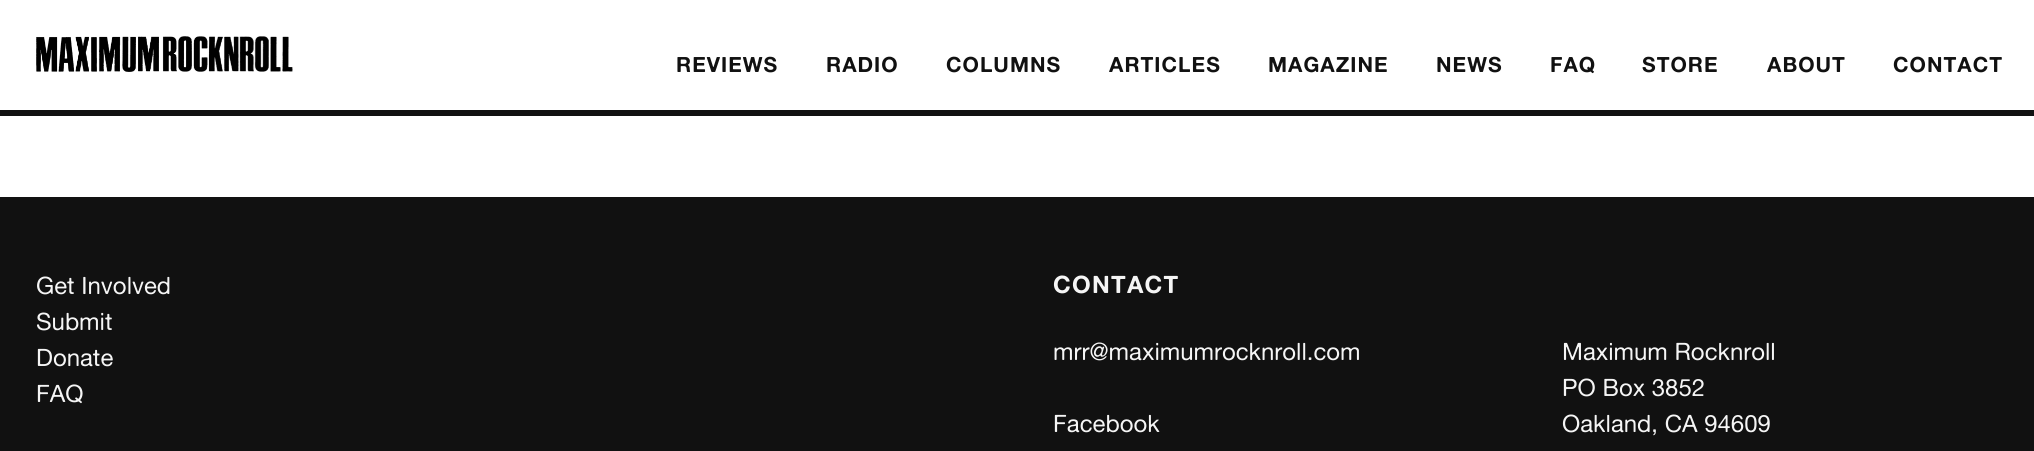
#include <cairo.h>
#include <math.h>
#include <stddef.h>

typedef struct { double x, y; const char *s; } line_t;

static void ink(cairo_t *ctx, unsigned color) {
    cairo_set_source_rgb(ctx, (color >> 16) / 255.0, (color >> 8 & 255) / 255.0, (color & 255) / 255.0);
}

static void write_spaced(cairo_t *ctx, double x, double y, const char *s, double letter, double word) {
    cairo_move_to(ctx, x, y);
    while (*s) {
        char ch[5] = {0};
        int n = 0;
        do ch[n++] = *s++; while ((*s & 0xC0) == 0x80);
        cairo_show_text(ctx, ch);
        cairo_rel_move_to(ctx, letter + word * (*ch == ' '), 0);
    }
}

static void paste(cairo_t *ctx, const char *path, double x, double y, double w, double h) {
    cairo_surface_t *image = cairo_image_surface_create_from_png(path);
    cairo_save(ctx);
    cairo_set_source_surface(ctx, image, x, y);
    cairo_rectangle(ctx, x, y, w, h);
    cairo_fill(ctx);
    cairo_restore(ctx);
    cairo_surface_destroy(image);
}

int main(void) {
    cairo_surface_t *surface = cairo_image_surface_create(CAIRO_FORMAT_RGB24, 2034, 451);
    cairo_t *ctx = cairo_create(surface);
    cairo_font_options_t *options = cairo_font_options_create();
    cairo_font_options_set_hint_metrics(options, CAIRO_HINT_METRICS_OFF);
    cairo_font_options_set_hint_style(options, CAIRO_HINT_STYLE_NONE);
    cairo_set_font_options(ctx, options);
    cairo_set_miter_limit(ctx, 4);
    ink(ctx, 0xFFFFFF);
    cairo_paint(ctx);
    ink(ctx, 0x111111);
    cairo_rectangle(ctx, 0, 110, 2034, 6);
    cairo_fill(ctx);
    paste(ctx, "media/1.png", 36, 36, 257, 36);
    cairo_select_font_face(ctx, "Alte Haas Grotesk", CAIRO_FONT_SLANT_NORMAL, CAIRO_FONT_WEIGHT_BOLD);
    cairo_set_font_size(ctx, 21);
    {
        static const line_t items[] = {
            {676, 72, "REVIEWS"},
            {826, 72, "RADIO"},
            {946, 72, "COLUMNS"},
            {1109, 72, "ARTICLES"},
            {1268, 72, "MAGAZINE"},
            {1436, 72, "NEWS"},
            {1550, 72, "FAQ"},
            {1642, 72, "STORE"},
            {1767, 72, "ABOUT"},
            {1893, 72, "CONTACT"},
        };
        for (size_t i = 0; i < sizeof items / sizeof *items; i++) {
            write_spaced(ctx, items[i].x, items[i].y, items[i].s, 1, 0);
        }
    }
    cairo_rectangle(ctx, 0, 197, 2034, 254);
    cairo_fill(ctx);
    cairo_select_font_face(ctx, "Alte Haas Grotesk", CAIRO_FONT_SLANT_NORMAL, CAIRO_FONT_WEIGHT_NORMAL);
    cairo_set_font_size(ctx, 24);
    ink(ctx, 0xF5F5F5);
    {
        static const line_t items[] = {
            {36, 294, "Get Involved"},
            {36, 330, "Submit"},
            {36, 366, "Donate"},
            {36, 402, "FAQ"},
        };
        for (size_t i = 0; i < sizeof items / sizeof *items; i++) {
            cairo_move_to(ctx, items[i].x, items[i].y);
            cairo_show_text(ctx, items[i].s);
        }
    }
    cairo_select_font_face(ctx, "Alte Haas Grotesk", CAIRO_FONT_SLANT_NORMAL, CAIRO_FONT_WEIGHT_BOLD);
    write_spaced(ctx, 1053, 293, "CONTACT", 1.25, 0);
    cairo_select_font_face(ctx, "Alte Haas Grotesk", CAIRO_FONT_SLANT_NORMAL, CAIRO_FONT_WEIGHT_NORMAL);
    {
        static const line_t items[] = {
            {1053, 360, "mrr@maximumrocknroll.com"},
            {1053, 432, "Facebook"},
            {1562, 360, "Maximum Rocknroll"},
            {1562, 396, "PO Box 3852"},
            {1562, 432, "Oakland, CA 94609"},
        };
        for (size_t i = 0; i < sizeof items / sizeof *items; i++) {
            cairo_move_to(ctx, items[i].x, items[i].y);
            cairo_show_text(ctx, items[i].s);
        }
    }
    cairo_surface_write_to_png(surface, "image.png");
    cairo_font_options_destroy(options);
    cairo_destroy(ctx);
    cairo_surface_destroy(surface);
    return 0;
}
